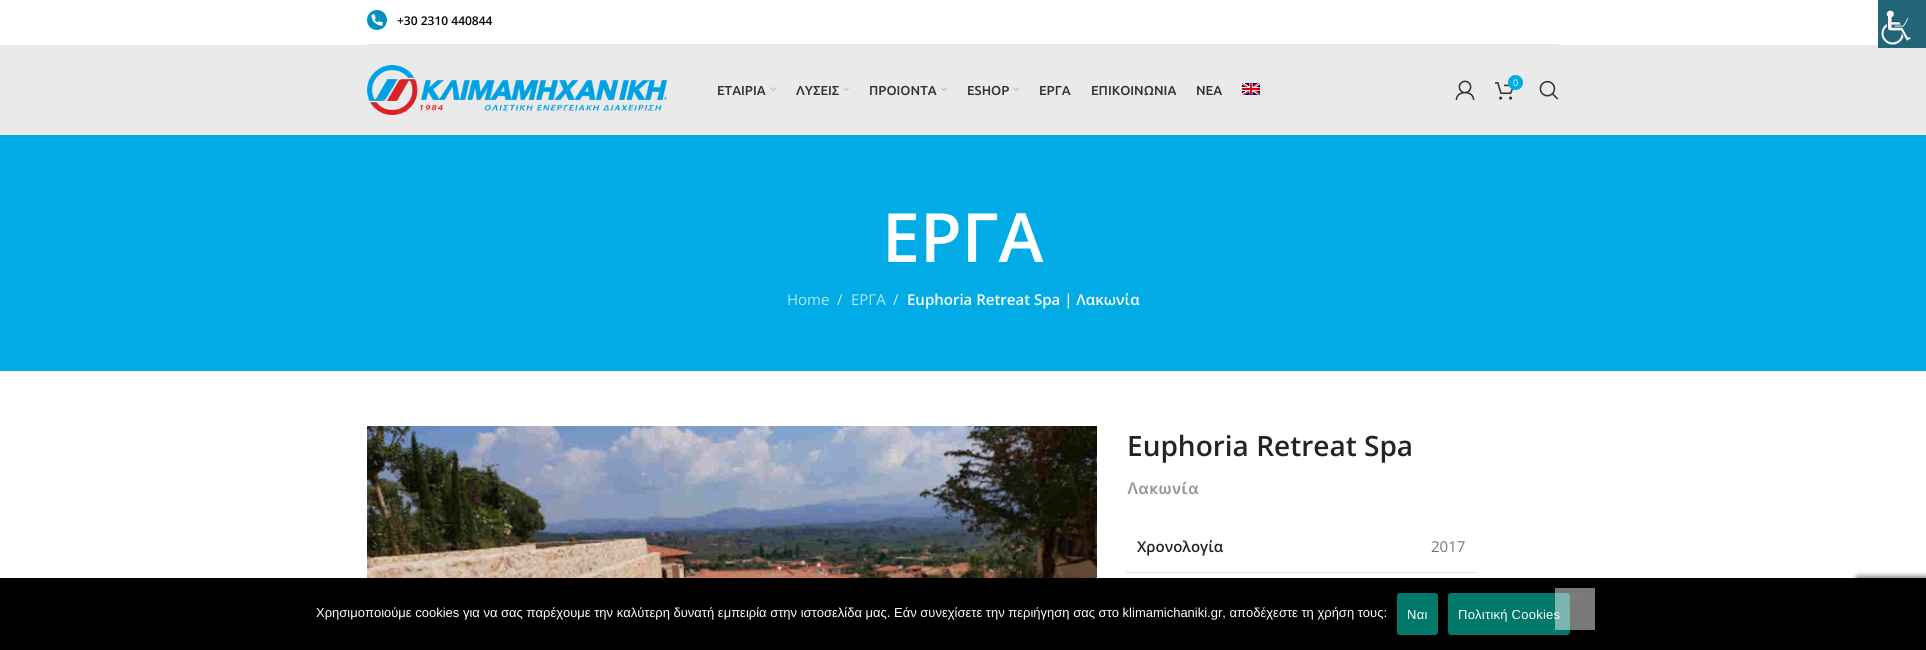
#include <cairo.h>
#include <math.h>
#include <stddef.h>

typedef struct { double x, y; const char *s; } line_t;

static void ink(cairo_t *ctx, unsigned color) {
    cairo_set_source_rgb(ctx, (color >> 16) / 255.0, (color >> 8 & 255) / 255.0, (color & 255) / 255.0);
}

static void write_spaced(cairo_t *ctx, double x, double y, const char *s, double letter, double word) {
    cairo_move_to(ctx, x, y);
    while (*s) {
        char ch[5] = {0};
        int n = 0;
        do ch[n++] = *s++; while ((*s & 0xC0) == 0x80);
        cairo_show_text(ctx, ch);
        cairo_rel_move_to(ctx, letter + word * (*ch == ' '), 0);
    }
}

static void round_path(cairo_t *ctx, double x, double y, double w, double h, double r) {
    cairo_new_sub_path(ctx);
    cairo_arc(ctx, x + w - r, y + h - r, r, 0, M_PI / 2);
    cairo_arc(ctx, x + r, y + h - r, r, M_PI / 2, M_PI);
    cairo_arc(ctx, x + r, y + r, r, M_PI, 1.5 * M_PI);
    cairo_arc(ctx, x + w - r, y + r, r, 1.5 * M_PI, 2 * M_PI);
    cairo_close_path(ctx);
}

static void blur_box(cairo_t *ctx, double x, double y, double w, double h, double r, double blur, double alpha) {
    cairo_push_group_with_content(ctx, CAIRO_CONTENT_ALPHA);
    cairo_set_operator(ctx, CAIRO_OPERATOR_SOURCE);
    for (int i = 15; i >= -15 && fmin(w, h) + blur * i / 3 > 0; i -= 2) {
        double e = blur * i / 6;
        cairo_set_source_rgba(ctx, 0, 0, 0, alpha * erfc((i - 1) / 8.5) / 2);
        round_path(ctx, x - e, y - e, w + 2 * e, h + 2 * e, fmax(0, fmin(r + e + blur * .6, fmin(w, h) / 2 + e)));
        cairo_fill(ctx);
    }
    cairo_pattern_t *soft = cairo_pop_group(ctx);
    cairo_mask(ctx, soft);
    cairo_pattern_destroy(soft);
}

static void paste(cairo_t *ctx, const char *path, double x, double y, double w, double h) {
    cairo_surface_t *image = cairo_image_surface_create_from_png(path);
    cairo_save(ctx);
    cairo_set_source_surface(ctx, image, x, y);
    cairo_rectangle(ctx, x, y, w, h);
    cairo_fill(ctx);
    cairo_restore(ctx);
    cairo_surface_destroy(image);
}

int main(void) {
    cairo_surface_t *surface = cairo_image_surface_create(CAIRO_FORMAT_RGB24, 1926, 650);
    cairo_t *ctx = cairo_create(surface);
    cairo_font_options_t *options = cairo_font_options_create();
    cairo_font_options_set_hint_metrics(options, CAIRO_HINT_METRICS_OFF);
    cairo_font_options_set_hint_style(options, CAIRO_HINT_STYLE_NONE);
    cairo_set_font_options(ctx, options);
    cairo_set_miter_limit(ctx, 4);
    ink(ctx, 0xFFFFFF);
    cairo_paint(ctx);
    ink(ctx, 0xE3E3E3);
    cairo_rectangle(ctx, 1126, 572, 108, 1);
    cairo_fill(ctx);
    ink(ctx, 0xE6E6E6);
    cairo_rectangle(ctx, 367, 44, 1192, 1);
    cairo_fill(ctx);
    paste(ctx, "media/1.png", 367, 10, 20, 20);
    cairo_select_font_face(ctx, "Open Sans SemiBold", CAIRO_FONT_SLANT_NORMAL, CAIRO_FONT_WEIGHT_NORMAL);
    cairo_set_font_size(ctx, 12);
    ink(ctx, 0x000000);
    cairo_move_to(ctx, 397, 25);
    cairo_show_text(ctx, "+30 2310 440844");
    ink(ctx, 0xEBEAEA);
    cairo_rectangle(ctx, 0, 45, 1926, 90);
    cairo_fill(ctx);
    paste(ctx, "media/2.png", 367, 65, 300, 50);
    paste(ctx, "media/3.png", 1455, 80, 20, 20);
    paste(ctx, "media/4.png", 1495, 82, 19, 18);
    ink(ctx, 0x00ABE6);
    cairo_arc(ctx, 1515.5, 82.5, 7.5, 0, 2 * M_PI);
    cairo_fill(ctx);
    cairo_select_font_face(ctx, "Open Sans", CAIRO_FONT_SLANT_NORMAL, CAIRO_FONT_WEIGHT_NORMAL);
    cairo_set_font_size(ctx, 9);
    ink(ctx, 0xFFFFFF);
    cairo_move_to(ctx, 1513, 86);
    cairo_show_text(ctx, "0");
    paste(ctx, "media/5.png", 1539, 80, 20, 20);
    cairo_select_font_face(ctx, "Ubuntu Medium", CAIRO_FONT_SLANT_NORMAL, CAIRO_FONT_WEIGHT_NORMAL);
    cairo_set_font_size(ctx, 13);
    ink(ctx, 0x333333);
    cairo_move_to(ctx, 717, 95);
    cairo_show_text(ctx, "ΕΤΑΙΡΙΑ");
    paste(ctx, "media/6.png", 770, 87, 6, 4);
    cairo_move_to(ctx, 796, 95);
    cairo_show_text(ctx, "ΛΥΣΕΙΣ");
    paste(ctx, "media/6.png", 843, 87, 6, 4);
    cairo_move_to(ctx, 869, 95);
    cairo_show_text(ctx, "ΠΡΟΙΟΝΤΑ");
    paste(ctx, "media/6.png", 941, 87, 6, 4);
    cairo_move_to(ctx, 967, 95);
    cairo_show_text(ctx, "ESHOP");
    paste(ctx, "media/6.png", 1013, 87, 6, 4);
    {
        static const line_t items[] = {
            {1039, 95, "ΕΡΓΑ"},
            {1091, 95, "ΕΠΙΚΟΙΝΩΝΙΑ"},
            {1196, 95, "ΝΕΑ"},
        };
        for (size_t i = 0; i < sizeof items / sizeof *items; i++) {
            cairo_move_to(ctx, items[i].x, items[i].y);
            cairo_show_text(ctx, items[i].s);
        }
    }
    paste(ctx, "media/7.png", 1242, 83, 18, 12);
    ink(ctx, 0x00ABE6);
    cairo_rectangle(ctx, 0, 135, 1926, 236);
    cairo_fill(ctx);
    cairo_select_font_face(ctx, "Open Sans SemiBold", CAIRO_FONT_SLANT_NORMAL, CAIRO_FONT_WEIGHT_NORMAL);
    cairo_set_font_size(ctx, 68);
    ink(ctx, 0xFFFFFF);
    cairo_move_to(ctx, 882, 262);
    cairo_show_text(ctx, "ΕΡΓΑ");
    cairo_select_font_face(ctx, "Open Sans", CAIRO_FONT_SLANT_NORMAL, CAIRO_FONT_WEIGHT_NORMAL);
    cairo_set_font_size(ctx, 15);
    ink(ctx, 0xB3E6F8);
    cairo_move_to(ctx, 787, 305);
    cairo_show_text(ctx, "Home");
    ink(ctx, 0xCCEEFA);
    cairo_move_to(ctx, 837, 305);
    cairo_show_text(ctx, "/");
    ink(ctx, 0xB3E6F8);
    cairo_move_to(ctx, 851, 305);
    cairo_show_text(ctx, "ΕΡΓΑ");
    ink(ctx, 0xCCEEFA);
    cairo_move_to(ctx, 893, 305);
    cairo_show_text(ctx, "/");
    cairo_select_font_face(ctx, "Open Sans SemiBold", CAIRO_FONT_SLANT_NORMAL, CAIRO_FONT_WEIGHT_NORMAL);
    ink(ctx, 0xFFFFFF);
    cairo_move_to(ctx, 907, 305);
    cairo_show_text(ctx, "Euphoria Retreat Spa | Λακωνία");
    paste(ctx, "media/8.png", 367, 426, 730, 152);
    cairo_set_font_size(ctx, 28);
    ink(ctx, 0x242424);
    cairo_move_to(ctx, 1127, 456);
    cairo_show_text(ctx, "Euphoria Retreat Spa");
    cairo_select_font_face(ctx, "M PLUS 1p", CAIRO_FONT_SLANT_NORMAL, CAIRO_FONT_WEIGHT_BOLD);
    cairo_set_font_size(ctx, 16);
    ink(ctx, 0x989898);
    cairo_move_to(ctx, 1127, 494);
    cairo_show_text(ctx, "Λακωνία");
    cairo_select_font_face(ctx, "Open Sans SemiBold", CAIRO_FONT_SLANT_NORMAL, CAIRO_FONT_WEIGHT_NORMAL);
    cairo_set_font_size(ctx, 15);
    ink(ctx, 0x242424);
    cairo_move_to(ctx, 1137, 552);
    cairo_show_text(ctx, "Χρονολογία");
    ink(ctx, 0xE4E4E4);
    cairo_rectangle(ctx, 1233, 572, 244, 1);
    cairo_fill(ctx);
    ink(ctx, 0xCBCBCB);
    cairo_rectangle(ctx, 1233, 572, 1, 1);
    cairo_fill(ctx);
    cairo_select_font_face(ctx, "Open Sans", CAIRO_FONT_SLANT_NORMAL, CAIRO_FONT_WEIGHT_NORMAL);
    ink(ctx, 0x777777);
    cairo_move_to(ctx, 1431, 552);
    cairo_show_text(ctx, "2017");
    paste(ctx, "media/9.png", 1878, 0, 48, 48);
    ink(ctx, 0x808080);
    blur_box(ctx, 1856, 576, 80, 60, 2, 2.5, 1);
    ink(ctx, 0x000000);
    cairo_rectangle(ctx, 0, 578, 1926, 72);
    cairo_fill(ctx);
    cairo_select_font_face(ctx, "Liberation Sans", CAIRO_FONT_SLANT_NORMAL, CAIRO_FONT_WEIGHT_NORMAL);
    cairo_set_font_size(ctx, 13);
    ink(ctx, 0xFFFFFF);
    cairo_move_to(ctx, 316, 617);
    cairo_show_text(ctx, "Χρησιμοποιούμε cookies για να σας παρέχουμε την καλύτερη δυνατή εμπειρία στην ιστοσελίδα μας. Εάν συνεχίσετε την περιήγηση σας στο klimamichaniki.gr, αποδέχεστε τη χρήση τους:");
    ink(ctx, 0x00796B);
    round_path(ctx, 1397, 593, 41, 42, 3);
    cairo_fill(ctx);
    ink(ctx, 0xFFFFFF);
    write_spaced(ctx, 1407, 619, "Ναι", 0.25, 0);
    ink(ctx, 0x00796B);
    round_path(ctx, 1448, 593, 122, 42, 3);
    cairo_fill(ctx);
    ink(ctx, 0xFFFFFF);
    write_spaced(ctx, 1458, 619, "Πολιτική Cookies", 0.25, 0);
    cairo_set_source_rgba(ctx, 0.953, 0.953, 0.953, 0.5);
    cairo_rectangle(ctx, 1555, 588, 40, 42);
    cairo_fill(ctx);
    cairo_set_source_rgba(ctx, 0.502, 0.502, 0.502, 0.5);
    cairo_new_path(ctx);
    cairo_move_to(ctx, 1579.5, 592.5);
    cairo_line_to(ctx, 1581, 594);
    cairo_line_to(ctx, 1570.5, 604.5);
    cairo_line_to(ctx, 1569, 603);
    cairo_close_path(ctx);
    cairo_fill(ctx);
    cairo_new_path(ctx);
    cairo_move_to(ctx, 1569, 594);
    cairo_line_to(ctx, 1570.5, 592.5);
    cairo_line_to(ctx, 1581, 603);
    cairo_line_to(ctx, 1579.5, 604.5);
    cairo_close_path(ctx);
    cairo_fill(ctx);
    cairo_surface_write_to_png(surface, "image.png");
    cairo_font_options_destroy(options);
    cairo_destroy(ctx);
    cairo_surface_destroy(surface);
    return 0;
}
